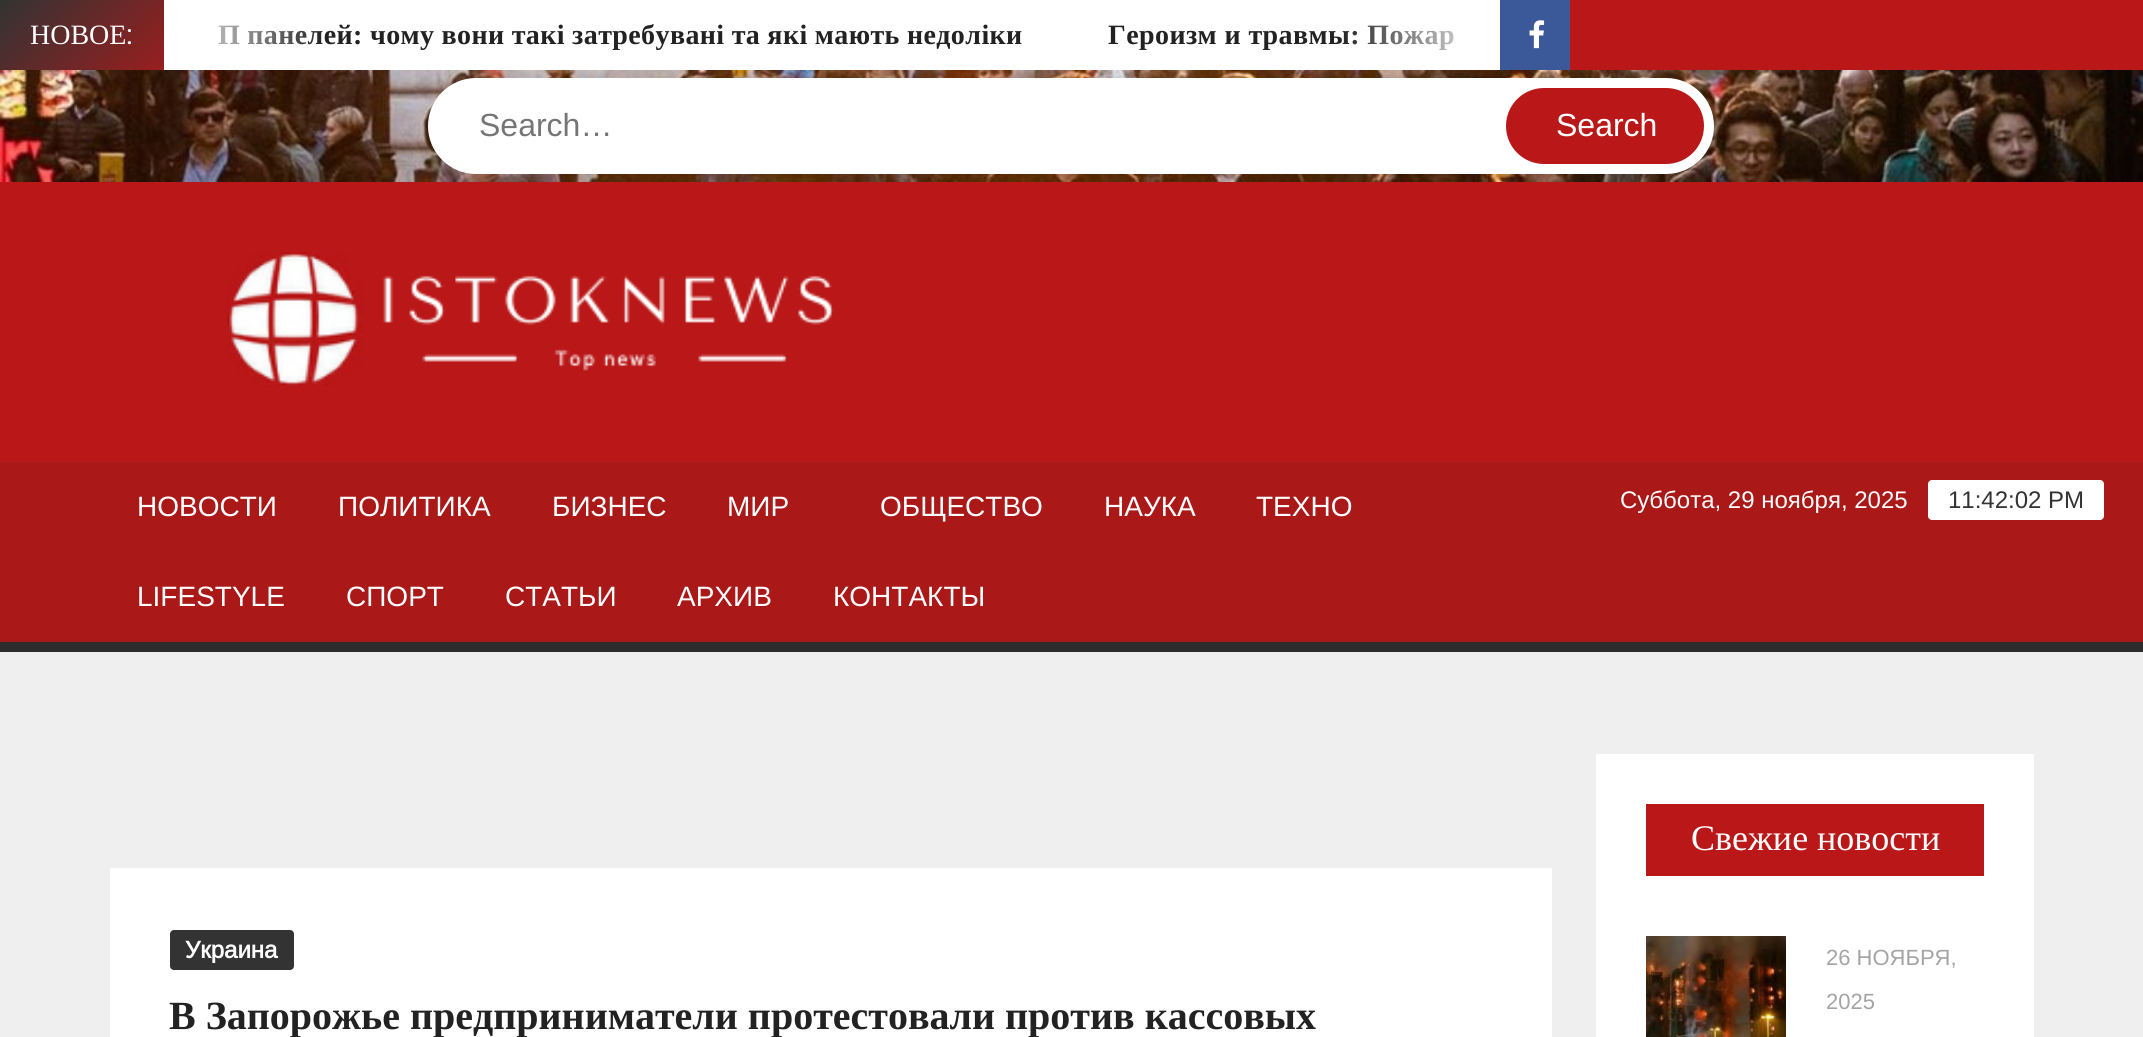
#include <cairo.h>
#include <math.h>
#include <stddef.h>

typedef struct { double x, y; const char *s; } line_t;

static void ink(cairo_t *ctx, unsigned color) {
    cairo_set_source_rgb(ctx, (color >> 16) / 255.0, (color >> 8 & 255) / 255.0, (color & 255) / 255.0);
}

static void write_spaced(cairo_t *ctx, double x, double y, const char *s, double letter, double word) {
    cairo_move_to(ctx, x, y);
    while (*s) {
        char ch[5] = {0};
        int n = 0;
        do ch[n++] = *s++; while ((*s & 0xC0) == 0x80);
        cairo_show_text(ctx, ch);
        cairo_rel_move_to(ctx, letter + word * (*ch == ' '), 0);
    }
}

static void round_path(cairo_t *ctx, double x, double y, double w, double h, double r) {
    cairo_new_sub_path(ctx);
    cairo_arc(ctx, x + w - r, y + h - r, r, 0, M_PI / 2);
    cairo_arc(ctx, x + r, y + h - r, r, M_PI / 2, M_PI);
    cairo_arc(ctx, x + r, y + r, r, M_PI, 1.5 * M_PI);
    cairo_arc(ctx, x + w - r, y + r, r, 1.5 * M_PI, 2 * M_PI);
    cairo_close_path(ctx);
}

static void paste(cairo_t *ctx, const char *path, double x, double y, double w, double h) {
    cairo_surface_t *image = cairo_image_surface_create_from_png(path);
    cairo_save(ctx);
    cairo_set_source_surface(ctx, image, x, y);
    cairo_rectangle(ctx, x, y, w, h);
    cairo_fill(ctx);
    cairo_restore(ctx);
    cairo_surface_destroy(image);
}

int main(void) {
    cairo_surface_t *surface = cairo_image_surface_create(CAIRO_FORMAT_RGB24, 2143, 1037);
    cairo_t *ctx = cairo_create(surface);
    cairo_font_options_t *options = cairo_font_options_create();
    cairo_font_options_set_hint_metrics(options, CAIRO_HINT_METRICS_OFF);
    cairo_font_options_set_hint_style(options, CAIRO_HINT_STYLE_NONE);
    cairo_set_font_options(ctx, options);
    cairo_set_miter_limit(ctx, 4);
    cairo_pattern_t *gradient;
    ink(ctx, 0xEFEFEF);
    cairo_paint(ctx);
    ink(ctx, 0xFFFFFF);
    cairo_rectangle(ctx, 165, 0, 1334, 70);
    cairo_fill(ctx);
    cairo_select_font_face(ctx, "Liberation Serif", CAIRO_FONT_SLANT_NORMAL, CAIRO_FONT_WEIGHT_BOLD);
    cairo_set_font_size(ctx, 28);
    ink(ctx, 0x222222);
    write_spaced(ctx, 1108, 44, "Героизм и травмы: Пожар", 0.4, 0);
    gradient = cairo_pattern_create_linear(1340, 35, 1500, 35);
    cairo_pattern_add_color_stop_rgba(gradient, 0, 1, 1, 1, 0);
    cairo_pattern_add_color_stop_rgba(gradient, 1, 1, 1, 1, 1);
    cairo_set_source(ctx, gradient);
    cairo_pattern_destroy(gradient);
    cairo_rectangle(ctx, 1343, 0, 157, 70);
    cairo_fill(ctx);
    gradient = cairo_pattern_create_linear(562, 374, 94, -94);
    cairo_pattern_add_color_stop_rgba(gradient, 0, 0.729, 0.094, 0.094, 1);
    cairo_pattern_add_color_stop_rgba(gradient, 0.33, 0.933, 0.933, 0.933, 1);
    cairo_pattern_add_color_stop_rgba(gradient, 0.67, 0.729, 0.094, 0.094, 1);
    cairo_pattern_add_color_stop_rgba(gradient, 1, 0.2, 0.2, 0.2, 1);
    cairo_set_source(ctx, gradient);
    cairo_pattern_destroy(gradient);
    cairo_rectangle(ctx, 0, 0, 164, 70);
    cairo_fill(ctx);
    cairo_select_font_face(ctx, "Liberation Serif", CAIRO_FONT_SLANT_NORMAL, CAIRO_FONT_WEIGHT_NORMAL);
    ink(ctx, 0xFFFFFF);
    cairo_move_to(ctx, 30, 44);
    cairo_show_text(ctx, "НОВОЕ");
    cairo_select_font_face(ctx, "Heebo", CAIRO_FONT_SLANT_NORMAL, CAIRO_FONT_WEIGHT_NORMAL);
    cairo_move_to(ctx, 126, 44);
    cairo_show_text(ctx, ":");
    cairo_select_font_face(ctx, "Liberation Serif", CAIRO_FONT_SLANT_NORMAL, CAIRO_FONT_WEIGHT_BOLD);
    ink(ctx, 0x222222);
    write_spaced(ctx, 218, 44, "П панелей: чому вони такі затребувані та які мають недоліки", 0.4, -0.25);
    gradient = cairo_pattern_create_linear(164, 35, 324, 35);
    cairo_pattern_add_color_stop_rgba(gradient, 0, 1, 1, 1, 1);
    cairo_pattern_add_color_stop_rgba(gradient, 1, 1, 1, 1, 0);
    cairo_set_source(ctx, gradient);
    cairo_pattern_destroy(gradient);
    cairo_rectangle(ctx, 164, 0, 157, 70);
    cairo_fill(ctx);
    ink(ctx, 0xBA1818);
    cairo_rectangle(ctx, 1570, 0, 573, 70);
    cairo_fill(ctx);
    ink(ctx, 0x3B5999);
    cairo_rectangle(ctx, 1500, 0, 70, 70);
    cairo_fill(ctx);
    paste(ctx, "media/1.png", 1529, 20, 16, 29);
    paste(ctx, "media/2.png", 0, 70, 2143, 112);
    ink(ctx, 0xFFFFFF);
    round_path(ctx, 428, 78, 1286, 96, 48);
    cairo_fill(ctx);
    cairo_select_font_face(ctx, "Arimo", CAIRO_FONT_SLANT_NORMAL, CAIRO_FONT_WEIGHT_NORMAL);
    cairo_set_font_size(ctx, 32);
    ink(ctx, 0x757575);
    cairo_move_to(ctx, 479, 136);
    cairo_show_text(ctx, "Search…");
    cairo_save(ctx);
    round_path(ctx, 438, 88, 1266, 76, 38);
    cairo_clip(ctx);
    ink(ctx, 0xBA1818);
    round_path(ctx, 1506, 88, 200, 76, 38);
    cairo_fill(ctx);
    cairo_restore(ctx);
    ink(ctx, 0xFFFFFF);
    cairo_move_to(ctx, 1556, 136);
    cairo_show_text(ctx, "Search");
    ink(ctx, 0xBA1818);
    cairo_rectangle(ctx, 0, 182, 2143, 280);
    cairo_fill(ctx);
    paste(ctx, "media/3.png", 226, 252, 608, 135);
    ink(ctx, 0xAA1818);
    cairo_rectangle(ctx, 0, 462, 2143, 180);
    cairo_fill(ctx);
    ink(ctx, 0x2C2C2C);
    cairo_rectangle(ctx, 0, 642, 2143, 10);
    cairo_fill(ctx);
    cairo_set_font_size(ctx, 28);
    ink(ctx, 0xFFFFFF);
    {
        static const line_t items[] = {
            {137, 516, "НОВОСТИ"},
            {338, 516, "ПОЛИТИКА"},
            {552, 516, "БИЗНЕС"},
            {727, 516, "МИР"},
            {880, 516, "ОБЩЕСТВО"},
            {1104, 516, "НАУКА"},
            {1256, 516, "ТЕХНО"},
            {137, 606, "LIFESTYLE"},
            {346, 606, "СПОРТ"},
            {505, 606, "СТАТЬИ"},
            {677, 606, "АРХИВ"},
            {833, 606, "КОНТАКТЫ"},
        };
        for (size_t i = 0; i < sizeof items / sizeof *items; i++) {
            cairo_move_to(ctx, items[i].x, items[i].y);
            cairo_show_text(ctx, items[i].s);
        }
    }
    cairo_set_font_size(ctx, 24);
    cairo_move_to(ctx, 1620, 508);
    cairo_show_text(ctx, "Суббота, 29 ноября, 2025");
    round_path(ctx, 1928, 480, 176, 40, 4);
    cairo_fill(ctx);
    ink(ctx, 0x333333);
    cairo_move_to(ctx, 1948, 508);
    cairo_show_text(ctx, "11:42:02 PM");
    ink(ctx, 0xFFFFFF);
    cairo_rectangle(ctx, 110, 868, 1442, 169);
    cairo_fill(ctx);
    ink(ctx, 0x333333);
    round_path(ctx, 170, 930, 124, 40, 4);
    cairo_fill(ctx);
    cairo_select_font_face(ctx, "Arimo", CAIRO_FONT_SLANT_NORMAL, CAIRO_FONT_WEIGHT_BOLD);
    ink(ctx, 0xFFFFFF);
    cairo_move_to(ctx, 185, 958);
    cairo_show_text(ctx, "Украина");
    cairo_select_font_face(ctx, "Liberation Serif", CAIRO_FONT_SLANT_NORMAL, CAIRO_FONT_WEIGHT_BOLD);
    cairo_set_font_size(ctx, 40);
    ink(ctx, 0x222222);
    cairo_move_to(ctx, 169, 1029);
    cairo_show_text(ctx, "В Запорожье предприниматели протестовали против кассовых");
    ink(ctx, 0xFFFFFF);
    cairo_rectangle(ctx, 1596, 754, 438, 283);
    cairo_fill(ctx);
    ink(ctx, 0xBA1818);
    cairo_rectangle(ctx, 1646, 804, 338, 72);
    cairo_fill(ctx);
    cairo_select_font_face(ctx, "Liberation Serif", CAIRO_FONT_SLANT_NORMAL, CAIRO_FONT_WEIGHT_NORMAL);
    cairo_set_font_size(ctx, 36);
    ink(ctx, 0xFFFFFF);
    cairo_move_to(ctx, 1691, 850);
    cairo_show_text(ctx, "Свежие новости");
    paste(ctx, "media/4.png", 1646, 936, 140, 101);
    cairo_select_font_face(ctx, "Arimo", CAIRO_FONT_SLANT_NORMAL, CAIRO_FONT_WEIGHT_NORMAL);
    cairo_set_font_size(ctx, 22);
    ink(ctx, 0xA4A4A4);
    cairo_move_to(ctx, 1826, 965);
    cairo_show_text(ctx, "26 НОЯБРЯ,");
    cairo_move_to(ctx, 1826, 1009);
    cairo_show_text(ctx, "2025");
    cairo_surface_write_to_png(surface, "image.png");
    cairo_font_options_destroy(options);
    cairo_destroy(ctx);
    cairo_surface_destroy(surface);
    return 0;
}
